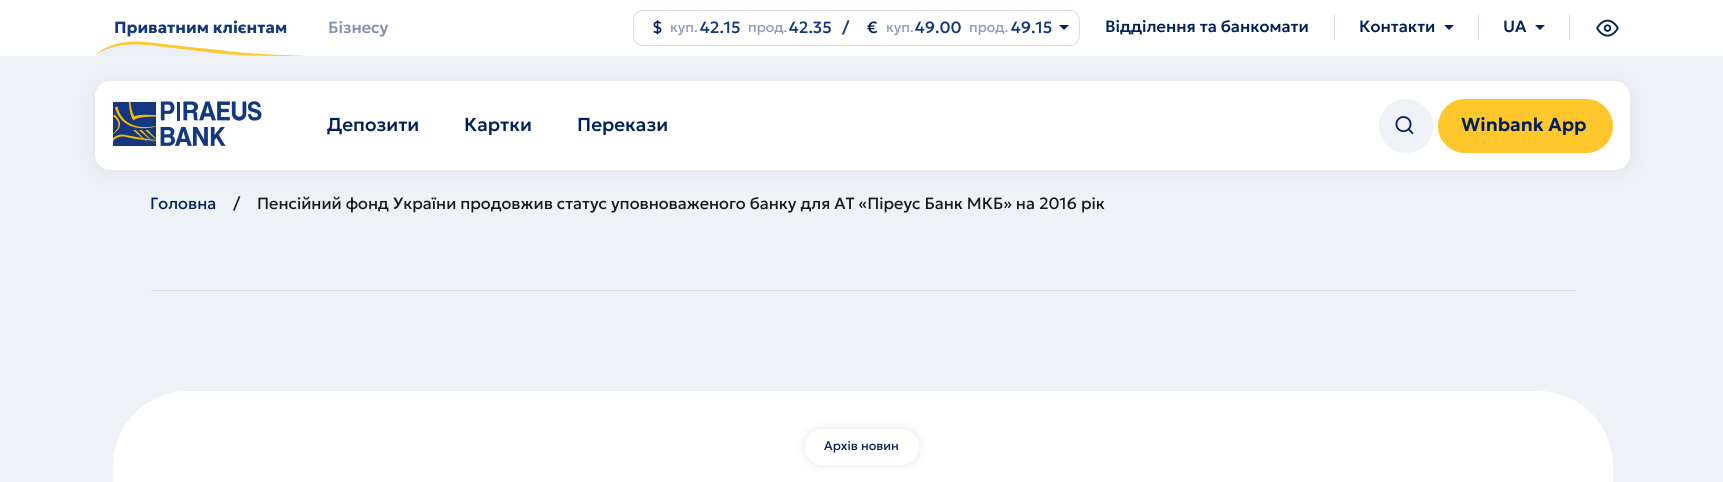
#include <cairo.h>
#include <math.h>
#include <stddef.h>

typedef struct { double x, y; const char *s; } line_t;

static void ink(cairo_t *ctx, unsigned color) {
    cairo_set_source_rgb(ctx, (color >> 16) / 255.0, (color >> 8 & 255) / 255.0, (color & 255) / 255.0);
}

static void round_path(cairo_t *ctx, double x, double y, double w, double h, double r) {
    cairo_new_sub_path(ctx);
    cairo_arc(ctx, x + w - r, y + h - r, r, 0, M_PI / 2);
    cairo_arc(ctx, x + r, y + h - r, r, M_PI / 2, M_PI);
    cairo_arc(ctx, x + r, y + r, r, M_PI, 1.5 * M_PI);
    cairo_arc(ctx, x + w - r, y + r, r, 1.5 * M_PI, 2 * M_PI);
    cairo_close_path(ctx);
}

static void blur_box(cairo_t *ctx, double x, double y, double w, double h, double r, double blur, double alpha) {
    cairo_push_group_with_content(ctx, CAIRO_CONTENT_ALPHA);
    cairo_set_operator(ctx, CAIRO_OPERATOR_SOURCE);
    for (int i = 15; i >= -15 && fmin(w, h) + blur * i / 3 > 0; i -= 2) {
        double e = blur * i / 6;
        cairo_set_source_rgba(ctx, 0, 0, 0, alpha * erfc((i - 1) / 8.5) / 2);
        round_path(ctx, x - e, y - e, w + 2 * e, h + 2 * e, fmax(0, fmin(r + e + blur * .6, fmin(w, h) / 2 + e)));
        cairo_fill(ctx);
    }
    cairo_pattern_t *soft = cairo_pop_group(ctx);
    cairo_mask(ctx, soft);
    cairo_pattern_destroy(soft);
}

static void paste(cairo_t *ctx, const char *path, double x, double y, double w, double h) {
    cairo_surface_t *image = cairo_image_surface_create_from_png(path);
    cairo_save(ctx);
    cairo_set_source_surface(ctx, image, x, y);
    cairo_rectangle(ctx, x, y, w, h);
    cairo_fill(ctx);
    cairo_restore(ctx);
    cairo_surface_destroy(image);
}

int main(void) {
    cairo_surface_t *surface = cairo_image_surface_create(CAIRO_FORMAT_RGB24, 1723, 482);
    cairo_t *ctx = cairo_create(surface);
    cairo_font_options_t *options = cairo_font_options_create();
    cairo_font_options_set_hint_metrics(options, CAIRO_HINT_METRICS_OFF);
    cairo_font_options_set_hint_style(options, CAIRO_HINT_STYLE_NONE);
    cairo_set_font_options(ctx, options);
    cairo_set_miter_limit(ctx, 4);
    ink(ctx, 0xEEF1F6);
    cairo_paint(ctx);
    ink(ctx, 0x00205B);
    blur_box(ctx, 95, 84, 1535, 89, 15, 12.5, 0.06);
    ink(ctx, 0xFFFFFF);
    cairo_rectangle(ctx, 0, 0, 1723, 56);
    cairo_fill(ctx);
    cairo_save(ctx);
    cairo_rectangle(ctx, 95, 40, 213, 16);
    cairo_clip(ctx);
    ink(ctx, 0xECF0F6);
    cairo_new_path(ctx);
    cairo_move_to(ctx, 306, 56);
    cairo_curve_to(ctx, 261, 56, 244, 56, 146, 42);
    cairo_curve_to(ctx, 114, 37, 95, 55, 95, 55);
    cairo_line_to(ctx, 95, 61);
    cairo_line_to(ctx, 306, 61);
    cairo_close_path(ctx);
    cairo_fill(ctx);
    cairo_restore(ctx);
    ink(ctx, 0xFFC72C);
    cairo_new_path(ctx);
    cairo_move_to(ctx, 95, 55);
    cairo_curve_to(ctx, 118, 36, 145, 42, 172, 45);
    cairo_line_to(ctx, 218, 50);
    cairo_curve_to(ctx, 248, 54, 279, 55, 309, 56);
    cairo_curve_to(ctx, 280, 56, 252, 56, 224, 54);
    cairo_line_to(ctx, 173, 48);
    cairo_curve_to(ctx, 146, 45, 121, 39, 95, 55);
    cairo_close_path(ctx);
    cairo_fill(ctx);
    cairo_select_font_face(ctx, "Geologica", CAIRO_FONT_SLANT_NORMAL, CAIRO_FONT_WEIGHT_BOLD);
    cairo_set_font_size(ctx, 16.25);
    ink(ctx, 0x13377D);
    cairo_move_to(ctx, 114, 33);
    cairo_show_text(ctx, "Приватним клієнтам");
    cairo_select_font_face(ctx, "Geologica Medium", CAIRO_FONT_SLANT_NORMAL, CAIRO_FONT_WEIGHT_NORMAL);
    ink(ctx, 0x8090AD);
    cairo_move_to(ctx, 328, 33);
    cairo_show_text(ctx, "Бізнесу");
    round_path(ctx, 633.5, 10.5, 446, 35, 9.5);
    ink(ctx, 0xD8DFEC);
    cairo_set_line_width(ctx, 1);
    cairo_stroke(ctx);
    ink(ctx, 0x00205B);
    cairo_move_to(ctx, 652, 33);
    cairo_show_text(ctx, "$");
    cairo_select_font_face(ctx, "Geologica", CAIRO_FONT_SLANT_NORMAL, CAIRO_FONT_WEIGHT_NORMAL);
    cairo_set_font_size(ctx, 14);
    ink(ctx, 0x899BBE);
    cairo_move_to(ctx, 670, 32);
    cairo_show_text(ctx, "куп.");
    cairo_select_font_face(ctx, "Geologica Medium", CAIRO_FONT_SLANT_NORMAL, CAIRO_FONT_WEIGHT_NORMAL);
    cairo_set_font_size(ctx, 16.25);
    ink(ctx, 0x13377D);
    cairo_move_to(ctx, 700, 33);
    cairo_show_text(ctx, "42.15");
    cairo_select_font_face(ctx, "Geologica", CAIRO_FONT_SLANT_NORMAL, CAIRO_FONT_WEIGHT_NORMAL);
    cairo_set_font_size(ctx, 14);
    ink(ctx, 0x899BBE);
    cairo_move_to(ctx, 748, 32);
    cairo_show_text(ctx, "прод.");
    cairo_select_font_face(ctx, "Geologica Medium", CAIRO_FONT_SLANT_NORMAL, CAIRO_FONT_WEIGHT_NORMAL);
    cairo_set_font_size(ctx, 16.25);
    ink(ctx, 0x13377D);
    cairo_move_to(ctx, 789, 33);
    cairo_show_text(ctx, "42.35");
    cairo_move_to(ctx, 842, 33);
    cairo_show_text(ctx, "/");
    ink(ctx, 0x00205B);
    cairo_move_to(ctx, 867, 33);
    cairo_show_text(ctx, "€");
    cairo_select_font_face(ctx, "Geologica", CAIRO_FONT_SLANT_NORMAL, CAIRO_FONT_WEIGHT_NORMAL);
    cairo_set_font_size(ctx, 14);
    ink(ctx, 0x899BBE);
    cairo_move_to(ctx, 886, 32);
    cairo_show_text(ctx, "куп.");
    cairo_select_font_face(ctx, "Geologica Medium", CAIRO_FONT_SLANT_NORMAL, CAIRO_FONT_WEIGHT_NORMAL);
    cairo_set_font_size(ctx, 16.25);
    ink(ctx, 0x13377D);
    cairo_move_to(ctx, 915, 33);
    cairo_show_text(ctx, "49.00");
    cairo_select_font_face(ctx, "Geologica", CAIRO_FONT_SLANT_NORMAL, CAIRO_FONT_WEIGHT_NORMAL);
    cairo_set_font_size(ctx, 14);
    ink(ctx, 0x899BBE);
    cairo_move_to(ctx, 969, 32);
    cairo_show_text(ctx, "прод.");
    cairo_select_font_face(ctx, "Geologica Medium", CAIRO_FONT_SLANT_NORMAL, CAIRO_FONT_WEIGHT_NORMAL);
    cairo_set_font_size(ctx, 16.25);
    ink(ctx, 0x13377D);
    cairo_move_to(ctx, 1011, 33);
    cairo_show_text(ctx, "49.15");
    ink(ctx, 0x00205B);
    cairo_new_path(ctx);
    cairo_move_to(ctx, 1059, 25);
    cairo_line_to(ctx, 1064, 30);
    cairo_line_to(ctx, 1069, 25);
    cairo_close_path(ctx);
    cairo_fill(ctx);
    cairo_move_to(ctx, 1105, 32);
    cairo_show_text(ctx, "Відділення та банкомати");
    ink(ctx, 0xD8DFEC);
    cairo_rectangle(ctx, 1334, 15, 1, 25);
    cairo_fill(ctx);
    ink(ctx, 0x00205B);
    cairo_move_to(ctx, 1359, 32);
    cairo_show_text(ctx, "Контакти");
    cairo_new_path(ctx);
    cairo_move_to(ctx, 1444, 25);
    cairo_line_to(ctx, 1449, 30);
    cairo_line_to(ctx, 1454, 25);
    cairo_close_path(ctx);
    cairo_fill(ctx);
    ink(ctx, 0xD8DFEC);
    cairo_rectangle(ctx, 1478, 15, 1, 25);
    cairo_fill(ctx);
    ink(ctx, 0x00205B);
    cairo_move_to(ctx, 1503, 32);
    cairo_show_text(ctx, "UA");
    cairo_new_path(ctx);
    cairo_move_to(ctx, 1535, 25);
    cairo_line_to(ctx, 1540, 30);
    cairo_line_to(ctx, 1545, 25);
    cairo_close_path(ctx);
    cairo_fill(ctx);
    ink(ctx, 0xD8DFEC);
    cairo_rectangle(ctx, 1569, 15, 1, 25);
    cairo_fill(ctx);
    paste(ctx, "media/1.png", 1596, 19, 23, 18);
    ink(ctx, 0x000000);
    blur_box(ctx, 95, 81, 1535, 89, 15, 0.5, 0.06);
    ink(ctx, 0xFFFFFF);
    round_path(ctx, 95, 81, 1535, 89, 15);
    cairo_fill(ctx);
    paste(ctx, "media/2.png", 113, 101, 149, 45);
    cairo_set_font_size(ctx, 18.75);
    ink(ctx, 0x00205B);
    {
        static const line_t items[] = {
            {327, 131, "Депозити"},
            {464, 131, "Картки"},
            {577, 131, "Перекази"},
        };
        for (size_t i = 0; i < sizeof items / sizeof *items; i++) {
            cairo_move_to(ctx, items[i].x, items[i].y);
            cairo_show_text(ctx, items[i].s);
        }
    }
    ink(ctx, 0xEEF1F6);
    cairo_new_path(ctx);
    cairo_arc(ctx, 1406, 126, 27, 0, 2 * M_PI);
    cairo_fill(ctx);
    paste(ctx, "media/3.png", 1395, 116, 19, 19);
    ink(ctx, 0xFFC72C);
    round_path(ctx, 1438, 99, 175, 54, 27);
    cairo_fill(ctx);
    cairo_select_font_face(ctx, "Geologica SemiBold", CAIRO_FONT_SLANT_NORMAL, CAIRO_FONT_WEIGHT_NORMAL);
    ink(ctx, 0x00205B);
    cairo_move_to(ctx, 1461, 131);
    cairo_show_text(ctx, "Winbank App");
    cairo_select_font_face(ctx, "Geologica", CAIRO_FONT_SLANT_NORMAL, CAIRO_FONT_WEIGHT_NORMAL);
    cairo_set_font_size(ctx, 16.25);
    cairo_move_to(ctx, 150, 209);
    cairo_show_text(ctx, "Головна");
    ink(ctx, 0x191818);
    cairo_move_to(ctx, 233, 209);
    cairo_show_text(ctx, "/");
    cairo_move_to(ctx, 257, 209);
    cairo_show_text(ctx, "Пенсійний фонд України продовжив статус уповноваженого банку для АТ «Піреус Банк МКБ» на 2016 рік");
    ink(ctx, 0xD8DFEC);
    cairo_rectangle(ctx, 151, 290, 1424, 1);
    cairo_fill(ctx);
    ink(ctx, 0xFFFFFF);
    round_path(ctx, 113, 391, 1500, 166, 75);
    cairo_fill(ctx);
    cairo_save(ctx);
    cairo_set_fill_rule(ctx, CAIRO_FILL_RULE_EVEN_ODD);
    cairo_new_path(ctx);
    cairo_move_to(ctx, 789, 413);
    cairo_line_to(ctx, 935, 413);
    cairo_line_to(ctx, 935, 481);
    cairo_line_to(ctx, 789, 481);
    cairo_close_path(ctx);
    cairo_move_to(ctx, 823, 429);
    cairo_line_to(ctx, 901, 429);
    cairo_curve_to(ctx, 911, 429, 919, 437, 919, 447);
    cairo_curve_to(ctx, 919, 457, 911, 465, 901, 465);
    cairo_line_to(ctx, 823, 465);
    cairo_curve_to(ctx, 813, 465, 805, 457, 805, 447);
    cairo_curve_to(ctx, 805, 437, 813, 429, 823, 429);
    cairo_close_path(ctx);
    cairo_clip(ctx);
    ink(ctx, 0x000000);
    blur_box(ctx, 805, 429, 114, 36, 18, 5, 0.1);
    cairo_restore(ctx);
    cairo_set_font_size(ctx, 12.5);
    ink(ctx, 0x00205B);
    cairo_move_to(ctx, 824, 450);
    cairo_show_text(ctx, "Архів новин");
    cairo_surface_write_to_png(surface, "image.png");
    cairo_font_options_destroy(options);
    cairo_destroy(ctx);
    cairo_surface_destroy(surface);
    return 0;
}
